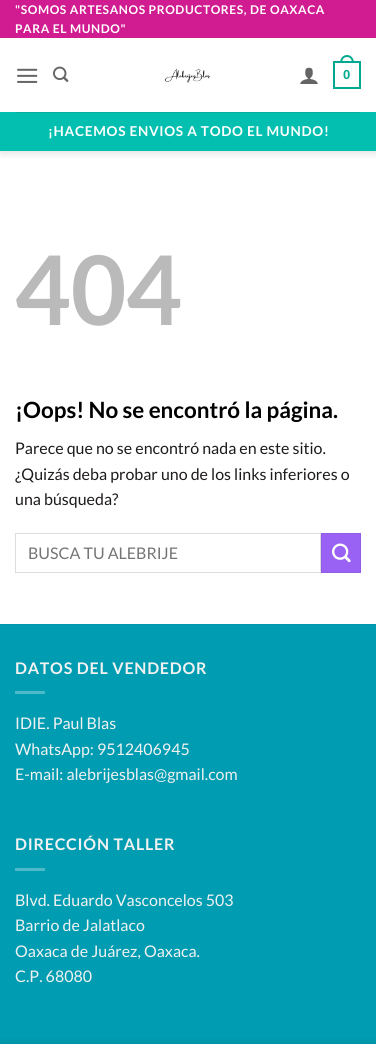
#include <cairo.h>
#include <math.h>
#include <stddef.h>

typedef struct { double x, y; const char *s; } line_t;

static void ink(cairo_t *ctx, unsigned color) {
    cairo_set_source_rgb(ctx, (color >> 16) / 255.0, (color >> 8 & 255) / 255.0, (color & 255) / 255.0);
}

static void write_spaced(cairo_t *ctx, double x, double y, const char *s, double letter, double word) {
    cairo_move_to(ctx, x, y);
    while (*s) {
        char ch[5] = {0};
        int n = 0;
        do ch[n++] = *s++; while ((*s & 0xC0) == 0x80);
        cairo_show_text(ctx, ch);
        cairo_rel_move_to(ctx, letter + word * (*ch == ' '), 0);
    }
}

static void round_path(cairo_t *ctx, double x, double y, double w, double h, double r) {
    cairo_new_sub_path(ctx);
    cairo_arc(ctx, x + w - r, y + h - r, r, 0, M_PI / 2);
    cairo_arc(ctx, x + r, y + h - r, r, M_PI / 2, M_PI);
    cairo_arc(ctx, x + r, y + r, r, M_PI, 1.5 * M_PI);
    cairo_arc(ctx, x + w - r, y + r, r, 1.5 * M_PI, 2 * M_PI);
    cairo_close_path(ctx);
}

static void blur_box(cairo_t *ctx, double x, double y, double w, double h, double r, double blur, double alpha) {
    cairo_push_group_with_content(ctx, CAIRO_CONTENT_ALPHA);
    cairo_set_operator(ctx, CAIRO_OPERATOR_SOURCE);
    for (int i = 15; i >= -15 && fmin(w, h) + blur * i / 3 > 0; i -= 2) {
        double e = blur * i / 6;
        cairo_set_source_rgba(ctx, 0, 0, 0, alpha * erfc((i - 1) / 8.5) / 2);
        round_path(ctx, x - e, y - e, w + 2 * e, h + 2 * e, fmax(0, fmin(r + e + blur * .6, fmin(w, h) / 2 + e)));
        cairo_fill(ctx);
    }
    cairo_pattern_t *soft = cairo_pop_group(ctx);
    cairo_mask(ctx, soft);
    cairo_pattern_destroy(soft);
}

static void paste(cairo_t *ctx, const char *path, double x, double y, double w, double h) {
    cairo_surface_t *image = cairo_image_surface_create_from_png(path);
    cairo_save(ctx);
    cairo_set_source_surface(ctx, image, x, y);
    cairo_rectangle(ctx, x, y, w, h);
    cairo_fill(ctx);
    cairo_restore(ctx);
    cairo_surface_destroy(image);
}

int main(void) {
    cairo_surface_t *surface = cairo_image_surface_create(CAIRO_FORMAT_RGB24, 376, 1044);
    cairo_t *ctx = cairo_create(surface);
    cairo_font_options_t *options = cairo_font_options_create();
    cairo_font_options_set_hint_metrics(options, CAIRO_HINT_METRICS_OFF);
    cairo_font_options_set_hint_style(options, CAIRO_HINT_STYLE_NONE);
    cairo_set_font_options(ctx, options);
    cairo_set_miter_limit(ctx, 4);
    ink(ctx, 0xFFFFFF);
    cairo_paint(ctx);
    cairo_save(ctx);
    cairo_rectangle(ctx, 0, 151, 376, 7);
    cairo_clip(ctx);
    ink(ctx, 0x000000);
    blur_box(ctx, 1, 1, 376, 151, 0, 5, 0.15);
    cairo_restore(ctx);
    ink(ctx, 0xD11B91);
    cairo_rectangle(ctx, 0, 0, 376, 38);
    cairo_fill(ctx);
    cairo_select_font_face(ctx, "Lato", CAIRO_FONT_SLANT_NORMAL, CAIRO_FONT_WEIGHT_BOLD);
    cairo_set_font_size(ctx, 12);
    ink(ctx, 0xFFFFFF);
    write_spaced(ctx, 15, 14, "\"SOMOS ARTESANOS PRODUCTORES, DE OAXACA", 0.6, 0);
    write_spaced(ctx, 15, 33, "PARA EL MUNDO\"", 0.6, 0);
    paste(ctx, "media/1.png", 17, 68, 21, 15);
    paste(ctx, "media/2.png", 53, 66, 16, 16);
    paste(ctx, "media/3.png", 164, 69, 47, 14);
    paste(ctx, "media/4.png", 300, 67, 18, 17);
    cairo_rectangle(ctx, 334, 62, 26, 26);
    ink(ctx, 0x03A98E);
    cairo_stroke(ctx);
    cairo_set_fill_rule(ctx, CAIRO_FILL_RULE_EVEN_ODD);
    cairo_new_path(ctx);
    cairo_move_to(ctx, 347, 55);
    cairo_curve_to(ctx, 351.5, 55, 354, 59, 354, 63);
    cairo_line_to(ctx, 340, 63);
    cairo_curve_to(ctx, 340, 59, 342.5, 55, 347, 55);
    cairo_close_path(ctx);
    cairo_move_to(ctx, 347, 57);
    cairo_curve_to(ctx, 350.5, 57, 352, 60, 352, 63);
    cairo_line_to(ctx, 342, 63);
    cairo_curve_to(ctx, 342, 60, 343.5, 57, 347, 57);
    cairo_close_path(ctx);
    cairo_fill(ctx);
    cairo_select_font_face(ctx, "Liberation Sans", CAIRO_FONT_SLANT_NORMAL, CAIRO_FONT_WEIGHT_BOLD);
    cairo_set_font_size(ctx, 13);
    cairo_move_to(ctx, 343, 79);
    cairo_show_text(ctx, "0");
    ink(ctx, 0x03BFAF);
    cairo_rectangle(ctx, 0, 112, 376, 39);
    cairo_fill(ctx);
    ink(ctx, 0x06AFA0);
    cairo_rectangle(ctx, 15, 112, 346, 1);
    cairo_fill(ctx);
    cairo_select_font_face(ctx, "Lato", CAIRO_FONT_SLANT_NORMAL, CAIRO_FONT_WEIGHT_BOLD);
    cairo_set_font_size(ctx, 13.6);
    ink(ctx, 0xFFFFFF);
    write_spaced(ctx, 48, 136, "¡HACEMOS ENVIOS A TODO EL MUNDO!", 0.7, 0);
    cairo_set_font_size(ctx, 96);
    ink(ctx, 0xBBBABA);
    cairo_move_to(ctx, 15, 325);
    cairo_show_text(ctx, "404");
    cairo_set_font_size(ctx, 22.4);
    ink(ctx, 0x000000);
    cairo_move_to(ctx, 15, 418);
    cairo_show_text(ctx, "¡Oops! No se encontró la página.");
    cairo_select_font_face(ctx, "Lato", CAIRO_FONT_SLANT_NORMAL, CAIRO_FONT_WEIGHT_NORMAL);
    cairo_set_font_size(ctx, 16);
    ink(ctx, 0x1D1A1A);
    {
        static const line_t items[] = {
            {15, 454, "Parece que no se encontró nada en este sitio."},
            {15, 480, "¿Quizás deba probar uno de los links inferiores o"},
            {15, 505, "una búsqueda?"},
        };
        for (size_t i = 0; i < sizeof items / sizeof *items; i++) {
            cairo_move_to(ctx, items[i].x, items[i].y);
            cairo_show_text(ctx, items[i].s);
        }
    }
    cairo_rectangle(ctx, 15.5, 533.5, 305, 39);
    ink(ctx, 0xDDDDDD);
    cairo_set_line_width(ctx, 1);
    cairo_stroke(ctx);
    ink(ctx, 0x757575);
    cairo_move_to(ctx, 28, 559);
    cairo_show_text(ctx, "BUSCA TU ALEBRIJE");
    ink(ctx, 0x9961F4);
    cairo_rectangle(ctx, 321.5, 533.5, 39, 39);
    cairo_fill_preserve(ctx);
    ink(ctx, 0x915CE8);
    cairo_stroke(ctx);
    paste(ctx, "media/5.png", 332, 543, 19, 20);
    ink(ctx, 0x009DB2);
    cairo_rectangle(ctx, 0, 625, 376, 419);
    cairo_fill(ctx);
    ink(ctx, 0x0095A9);
    cairo_rectangle(ctx, 0, 624, 376, 1);
    cairo_fill(ctx);
    cairo_select_font_face(ctx, "Lato", CAIRO_FONT_SLANT_NORMAL, CAIRO_FONT_WEIGHT_BOLD);
    ink(ctx, 0xF1F1F1);
    write_spaced(ctx, 15, 674, "DATOS DEL VENDEDOR", 0.75, 0);
    ink(ctx, 0x4DBAC9);
    cairo_rectangle(ctx, 15, 691, 30, 3);
    cairo_fill(ctx);
    cairo_select_font_face(ctx, "Lato", CAIRO_FONT_SLANT_NORMAL, CAIRO_FONT_WEIGHT_NORMAL);
    ink(ctx, 0xF1F1F1);
    {
        static const line_t items[] = {
            {15, 729, "IDIE. Paul Blas"},
            {15, 755, "WhatsApp: 9512406945"},
            {15, 780, "E-mail: alebrijesblas@gmail.com"},
        };
        for (size_t i = 0; i < sizeof items / sizeof *items; i++) {
            cairo_move_to(ctx, items[i].x, items[i].y);
            cairo_show_text(ctx, items[i].s);
        }
    }
    cairo_select_font_face(ctx, "Lato", CAIRO_FONT_SLANT_NORMAL, CAIRO_FONT_WEIGHT_BOLD);
    write_spaced(ctx, 15, 850, "DIRECCIÓN TALLER", 0.75, 0);
    ink(ctx, 0x4DBAC9);
    cairo_rectangle(ctx, 15, 868, 30, 3);
    cairo_fill(ctx);
    cairo_select_font_face(ctx, "Lato", CAIRO_FONT_SLANT_NORMAL, CAIRO_FONT_WEIGHT_NORMAL);
    ink(ctx, 0xF1F1F1);
    {
        static const line_t items[] = {
            {15, 906, "Blvd. Eduardo Vasconcelos 503"},
            {15, 931, "Barrio de Jalatlaco"},
            {15, 957, "Oaxaca de Juárez, Oaxaca."},
            {15, 982, "C.P. 68080"},
        };
        for (size_t i = 0; i < sizeof items / sizeof *items; i++) {
            cairo_move_to(ctx, items[i].x, items[i].y);
            cairo_show_text(ctx, items[i].s);
        }
    }
    ink(ctx, 0x000000);
    blur_box(ctx, 0, 1044, 376, 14, 0, 4.5, 0.14);
    cairo_surface_write_to_png(surface, "image.png");
    cairo_font_options_destroy(options);
    cairo_destroy(ctx);
    cairo_surface_destroy(surface);
    return 0;
}
